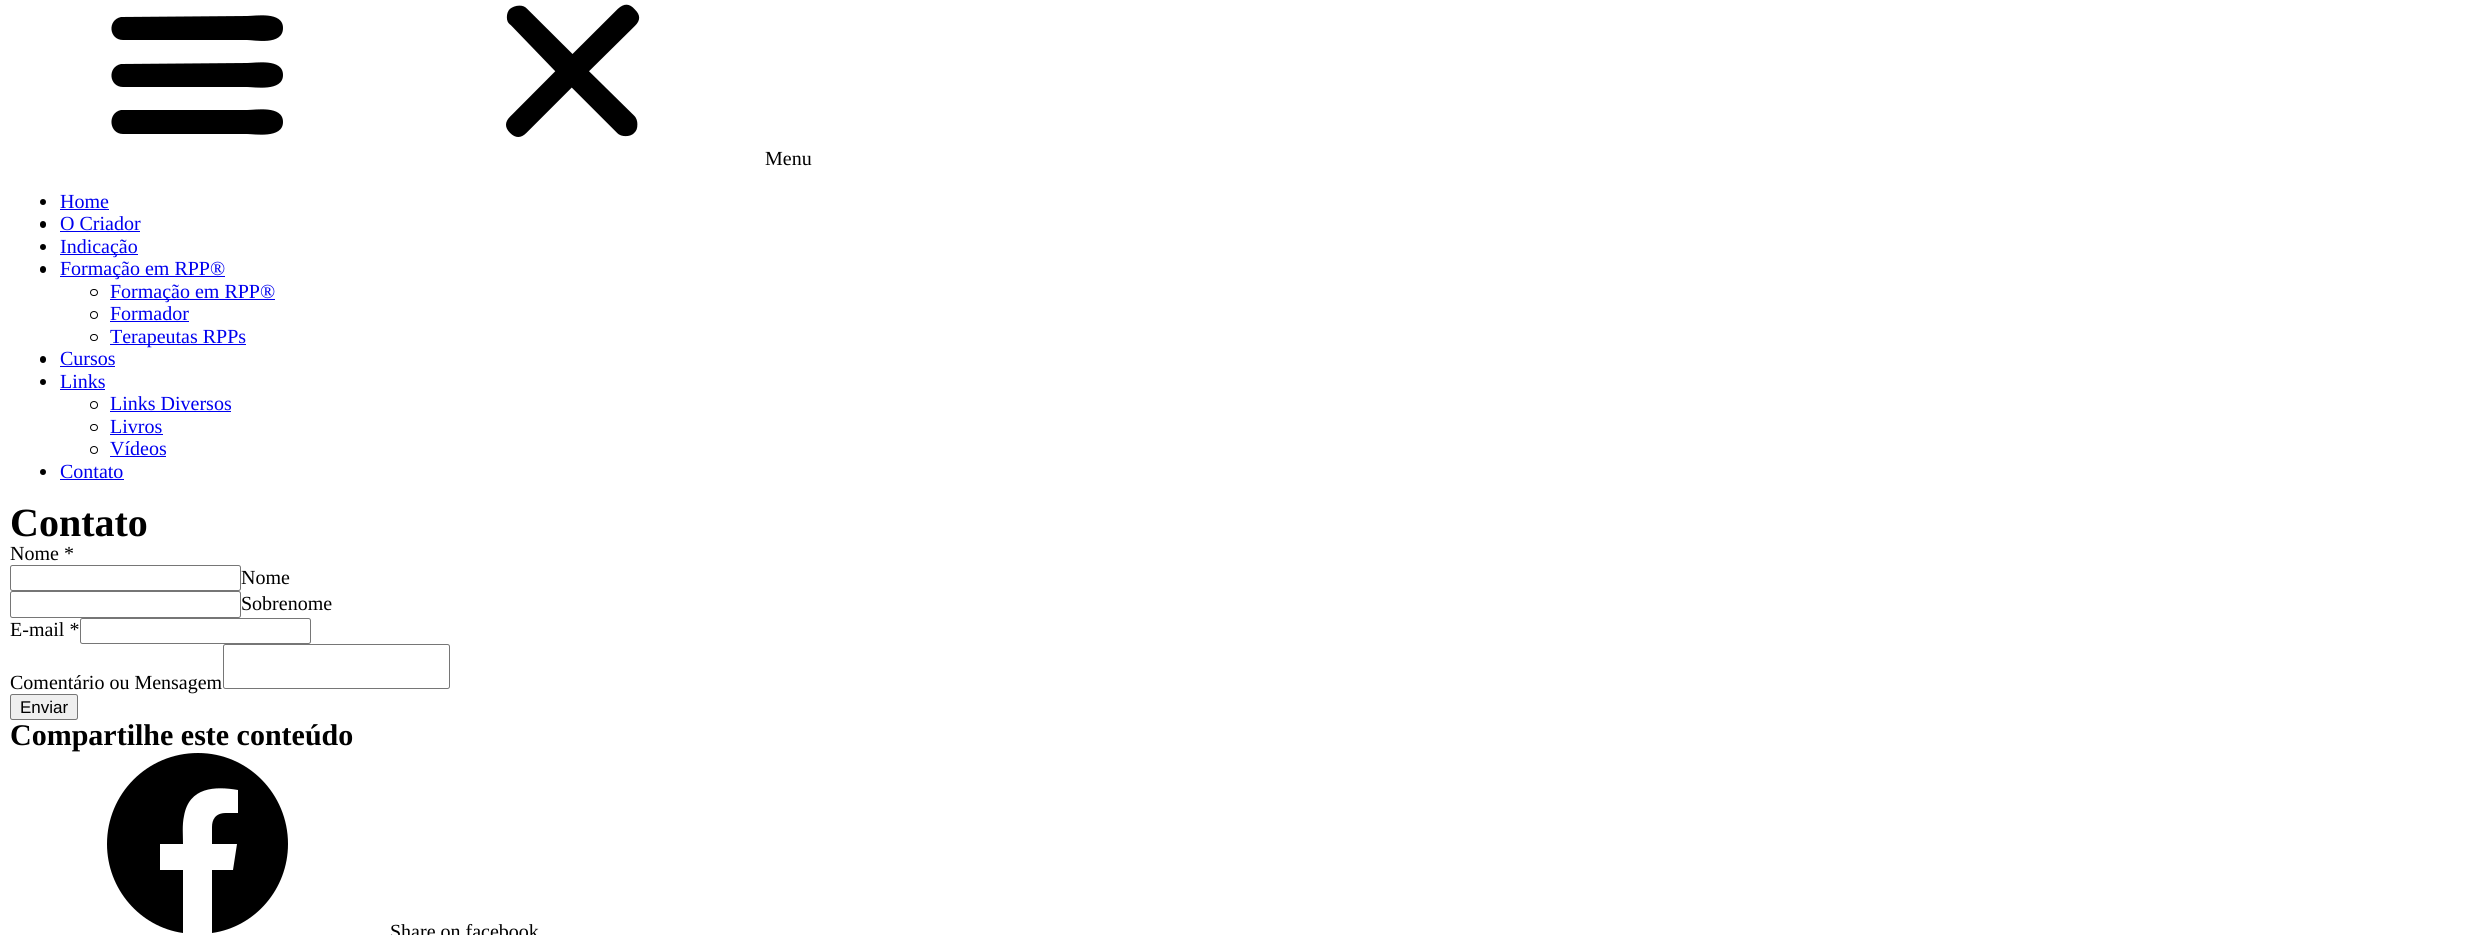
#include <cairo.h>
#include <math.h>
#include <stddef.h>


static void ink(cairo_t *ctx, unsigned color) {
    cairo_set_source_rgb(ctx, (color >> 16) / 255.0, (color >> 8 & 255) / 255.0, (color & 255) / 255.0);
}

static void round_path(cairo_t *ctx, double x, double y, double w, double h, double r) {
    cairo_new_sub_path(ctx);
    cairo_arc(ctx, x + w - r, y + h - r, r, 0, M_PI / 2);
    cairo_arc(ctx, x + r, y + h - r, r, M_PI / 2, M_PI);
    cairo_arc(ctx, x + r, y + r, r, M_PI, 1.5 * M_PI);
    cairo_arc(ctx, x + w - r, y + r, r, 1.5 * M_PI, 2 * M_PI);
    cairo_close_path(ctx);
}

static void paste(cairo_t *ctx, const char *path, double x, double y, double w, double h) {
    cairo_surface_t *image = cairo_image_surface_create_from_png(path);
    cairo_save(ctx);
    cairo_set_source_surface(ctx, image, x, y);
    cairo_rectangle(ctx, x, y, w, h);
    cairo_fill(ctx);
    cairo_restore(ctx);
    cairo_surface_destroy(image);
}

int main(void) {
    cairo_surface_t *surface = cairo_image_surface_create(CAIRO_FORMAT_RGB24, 2469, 935);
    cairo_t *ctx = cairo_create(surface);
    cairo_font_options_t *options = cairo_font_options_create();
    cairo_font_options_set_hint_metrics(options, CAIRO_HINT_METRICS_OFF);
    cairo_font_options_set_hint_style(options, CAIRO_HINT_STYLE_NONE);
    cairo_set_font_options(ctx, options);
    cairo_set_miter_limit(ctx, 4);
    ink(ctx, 0xFFFFFF);
    cairo_paint(ctx);
    ink(ctx, 0x000000);
    cairo_new_path(ctx);
    cairo_move_to(ctx, 123, 40);
    cairo_line_to(ctx, 247, 40);
    cairo_curve_to(ctx, 254, 40, 283, 46, 283, 28);
    cairo_curve_to(ctx, 283, 11, 255, 16, 247, 16);
    cairo_line_to(ctx, 121, 17);
    cairo_curve_to(ctx, 107, 20, 109, 40, 123, 40);
    cairo_close_path(ctx);
    cairo_move_to(ctx, 123, 87);
    cairo_line_to(ctx, 247, 87);
    cairo_curve_to(ctx, 254, 87, 283, 92, 283, 75);
    cairo_curve_to(ctx, 283, 58, 255, 63, 247, 63);
    cairo_line_to(ctx, 121, 64);
    cairo_curve_to(ctx, 107, 67, 109, 87, 123, 87);
    cairo_close_path(ctx);
    cairo_move_to(ctx, 123, 134);
    cairo_line_to(ctx, 247, 134);
    cairo_curve_to(ctx, 254, 134, 283, 139, 283, 122);
    cairo_curve_to(ctx, 283, 105, 255, 110, 247, 110);
    cairo_line_to(ctx, 121, 110);
    cairo_curve_to(ctx, 107, 113, 109, 134, 123, 134);
    cairo_close_path(ctx);
    cairo_fill(ctx);
    paste(ctx, "media/1.png", 506, 4, 134, 133);
    cairo_select_font_face(ctx, "Liberation Serif", CAIRO_FONT_SLANT_NORMAL, CAIRO_FONT_WEIGHT_NORMAL);
    cairo_set_font_size(ctx, 20);
    cairo_move_to(ctx, 765, 165);
    cairo_show_text(ctx, "Menu");
    cairo_new_path(ctx);
    cairo_arc(ctx, 43, 202, 3, 0, 2 * M_PI);
    cairo_fill(ctx);
    ink(ctx, 0x0000EE);
    cairo_move_to(ctx, 60, 208);
    cairo_show_text(ctx, "Home");
    cairo_rectangle(ctx, 60, 209, 49, 1);
    cairo_fill(ctx);
    ink(ctx, 0x000000);
    round_path(ctx, 40, 221, 6, 7, 3);
    cairo_fill(ctx);
    ink(ctx, 0x0000EE);
    cairo_move_to(ctx, 60, 230);
    cairo_show_text(ctx, "O Criador");
    cairo_rectangle(ctx, 60, 231, 80, 1);
    cairo_fill(ctx);
    ink(ctx, 0x000000);
    cairo_arc(ctx, 43, 247, 3, 0, 2 * M_PI);
    cairo_fill(ctx);
    ink(ctx, 0x0000EE);
    cairo_rectangle(ctx, 60, 254, 78, 1);
    cairo_fill(ctx);
    cairo_move_to(ctx, 60, 253);
    cairo_show_text(ctx, "Indicação");
    ink(ctx, 0x000000);
    round_path(ctx, 40, 266, 6, 7, 3);
    cairo_fill(ctx);
    ink(ctx, 0x0000EE);
    cairo_rectangle(ctx, 60, 276, 165, 1);
    cairo_fill(ctx);
    cairo_move_to(ctx, 60, 275);
    cairo_show_text(ctx, "Formação em RPP®");
    round_path(ctx, 90.5, 289.5, 7, 6, 3);
    ink(ctx, 0x000000);
    cairo_set_line_width(ctx, 1);
    cairo_stroke(ctx);
    ink(ctx, 0x0000EE);
    cairo_rectangle(ctx, 110, 299, 165, 1);
    cairo_fill(ctx);
    cairo_move_to(ctx, 110, 298);
    cairo_show_text(ctx, "Formação em RPP®");
    cairo_new_path(ctx);
    cairo_arc(ctx, 94, 315, 3.5, 0, 2 * M_PI);
    ink(ctx, 0x000000);
    cairo_stroke(ctx);
    ink(ctx, 0x0000EE);
    cairo_move_to(ctx, 110, 320);
    cairo_show_text(ctx, "Formador");
    cairo_rectangle(ctx, 110, 321, 79, 1);
    cairo_fill(ctx);
    round_path(ctx, 90.5, 334.5, 7, 6, 3);
    ink(ctx, 0x000000);
    cairo_stroke(ctx);
    ink(ctx, 0x0000EE);
    cairo_rectangle(ctx, 110, 344, 136, 1);
    cairo_fill(ctx);
    cairo_move_to(ctx, 110, 343);
    cairo_show_text(ctx, "Terapeutas RPPs");
    ink(ctx, 0x000000);
    round_path(ctx, 40, 356, 6, 7, 3);
    cairo_fill(ctx);
    ink(ctx, 0x0000EE);
    cairo_move_to(ctx, 60, 365);
    cairo_show_text(ctx, "Cursos");
    cairo_rectangle(ctx, 60, 366, 55, 1);
    cairo_fill(ctx);
    ink(ctx, 0x000000);
    cairo_arc(ctx, 43, 382, 3, 0, 2 * M_PI);
    cairo_fill(ctx);
    ink(ctx, 0x0000EE);
    cairo_move_to(ctx, 60, 388);
    cairo_show_text(ctx, "Links");
    cairo_rectangle(ctx, 60, 389, 45, 1);
    cairo_fill(ctx);
    cairo_arc(ctx, 94, 405, 3.5, 0, 2 * M_PI);
    ink(ctx, 0x000000);
    cairo_stroke(ctx);
    ink(ctx, 0x0000EE);
    cairo_move_to(ctx, 110, 410);
    cairo_show_text(ctx, "Links Diversos");
    cairo_rectangle(ctx, 110, 411, 121, 1);
    cairo_fill(ctx);
    round_path(ctx, 90.5, 424.5, 7, 6, 3);
    ink(ctx, 0x000000);
    cairo_stroke(ctx);
    ink(ctx, 0x0000EE);
    cairo_move_to(ctx, 110, 433);
    cairo_show_text(ctx, "Livros");
    cairo_rectangle(ctx, 110, 434, 53, 1);
    cairo_fill(ctx);
    cairo_arc(ctx, 94, 450, 3.5, 0, 2 * M_PI);
    ink(ctx, 0x000000);
    cairo_stroke(ctx);
    ink(ctx, 0x0000EE);
    cairo_move_to(ctx, 110, 455);
    cairo_show_text(ctx, "Vídeos");
    cairo_rectangle(ctx, 110, 456, 56, 1);
    cairo_fill(ctx);
    ink(ctx, 0x000000);
    cairo_arc(ctx, 43, 472, 3, 0, 2 * M_PI);
    cairo_fill(ctx);
    ink(ctx, 0x0000EE);
    cairo_move_to(ctx, 60, 478);
    cairo_show_text(ctx, "Contato");
    cairo_rectangle(ctx, 60, 479, 64, 1);
    cairo_fill(ctx);
    cairo_select_font_face(ctx, "Liberation Serif", CAIRO_FONT_SLANT_NORMAL, CAIRO_FONT_WEIGHT_BOLD);
    cairo_set_font_size(ctx, 40);
    ink(ctx, 0x000000);
    cairo_move_to(ctx, 10, 536);
    cairo_show_text(ctx, "Contato");
    cairo_select_font_face(ctx, "Liberation Serif", CAIRO_FONT_SLANT_NORMAL, CAIRO_FONT_WEIGHT_NORMAL);
    cairo_set_font_size(ctx, 20);
    cairo_move_to(ctx, 10, 560);
    cairo_show_text(ctx, "Nome *");
    round_path(ctx, 10.5, 565.5, 230, 25, 2);
    ink(ctx, 0x767676);
    cairo_stroke(ctx);
    ink(ctx, 0x000000);
    cairo_move_to(ctx, 241, 584);
    cairo_show_text(ctx, "Nome");
    round_path(ctx, 10.5, 591.5, 230, 26, 2);
    ink(ctx, 0x767676);
    cairo_stroke(ctx);
    ink(ctx, 0x000000);
    cairo_move_to(ctx, 241, 610);
    cairo_show_text(ctx, "Sobrenome");
    cairo_move_to(ctx, 10, 636);
    cairo_show_text(ctx, "E-mail *");
    round_path(ctx, 80.5, 618.5, 230, 25, 2);
    ink(ctx, 0x767676);
    cairo_stroke(ctx);
    ink(ctx, 0x000000);
    cairo_move_to(ctx, 10, 689);
    cairo_show_text(ctx, "Comentário ou Mensagem");
    round_path(ctx, 223.5, 644.5, 226, 44, 2);
    ink(ctx, 0x767676);
    cairo_stroke(ctx);
    ink(ctx, 0xEFEFEF);
    round_path(ctx, 10.5, 694.5, 67, 25, 2);
    cairo_fill_preserve(ctx);
    ink(ctx, 0x767676);
    cairo_stroke(ctx);
    cairo_select_font_face(ctx, "Liberation Sans", CAIRO_FONT_SLANT_NORMAL, CAIRO_FONT_WEIGHT_NORMAL);
    cairo_set_font_size(ctx, 17);
    ink(ctx, 0x000000);
    cairo_move_to(ctx, 20, 713);
    cairo_show_text(ctx, "Enviar");
    cairo_select_font_face(ctx, "Liberation Serif", CAIRO_FONT_SLANT_NORMAL, CAIRO_FONT_WEIGHT_BOLD);
    cairo_set_font_size(ctx, 30);
    cairo_move_to(ctx, 10, 745);
    cairo_show_text(ctx, "Compartilhe este conteúdo");
    cairo_select_font_face(ctx, "Liberation Serif", CAIRO_FONT_SLANT_NORMAL, CAIRO_FONT_WEIGHT_NORMAL);
    cairo_set_font_size(ctx, 20);
    cairo_move_to(ctx, 390, 938);
    cairo_show_text(ctx, "Share on facebook");
    cairo_new_path(ctx);
    cairo_move_to(ctx, 288, 844);
    cairo_curve_to(ctx, 288, 794, 248, 753, 198, 753);
    cairo_curve_to(ctx, 147, 753, 107, 794, 107, 844);
    cairo_curve_to(ctx, 107, 889, 140, 927, 183, 933);
    cairo_line_to(ctx, 183, 870);
    cairo_line_to(ctx, 160, 870);
    cairo_line_to(ctx, 160, 844);
    cairo_line_to(ctx, 183, 844);
    cairo_curve_to(ctx, 183, 835, 182, 825, 184, 816);
    cairo_curve_to(ctx, 189, 787, 215, 786, 238, 790);
    cairo_line_to(ctx, 238, 813);
    cairo_line_to(ctx, 226, 813);
    cairo_curve_to(ctx, 215, 813, 212, 820, 212, 827);
    cairo_line_to(ctx, 212, 844);
    cairo_line_to(ctx, 237, 844);
    cairo_line_to(ctx, 233, 870);
    cairo_line_to(ctx, 212, 870);
    cairo_line_to(ctx, 212, 933);
    cairo_curve_to(ctx, 255, 927, 288, 889, 288, 844);
    cairo_close_path(ctx);
    cairo_fill(ctx);
    cairo_surface_write_to_png(surface, "image.png");
    cairo_font_options_destroy(options);
    cairo_destroy(ctx);
    cairo_surface_destroy(surface);
    return 0;
}
